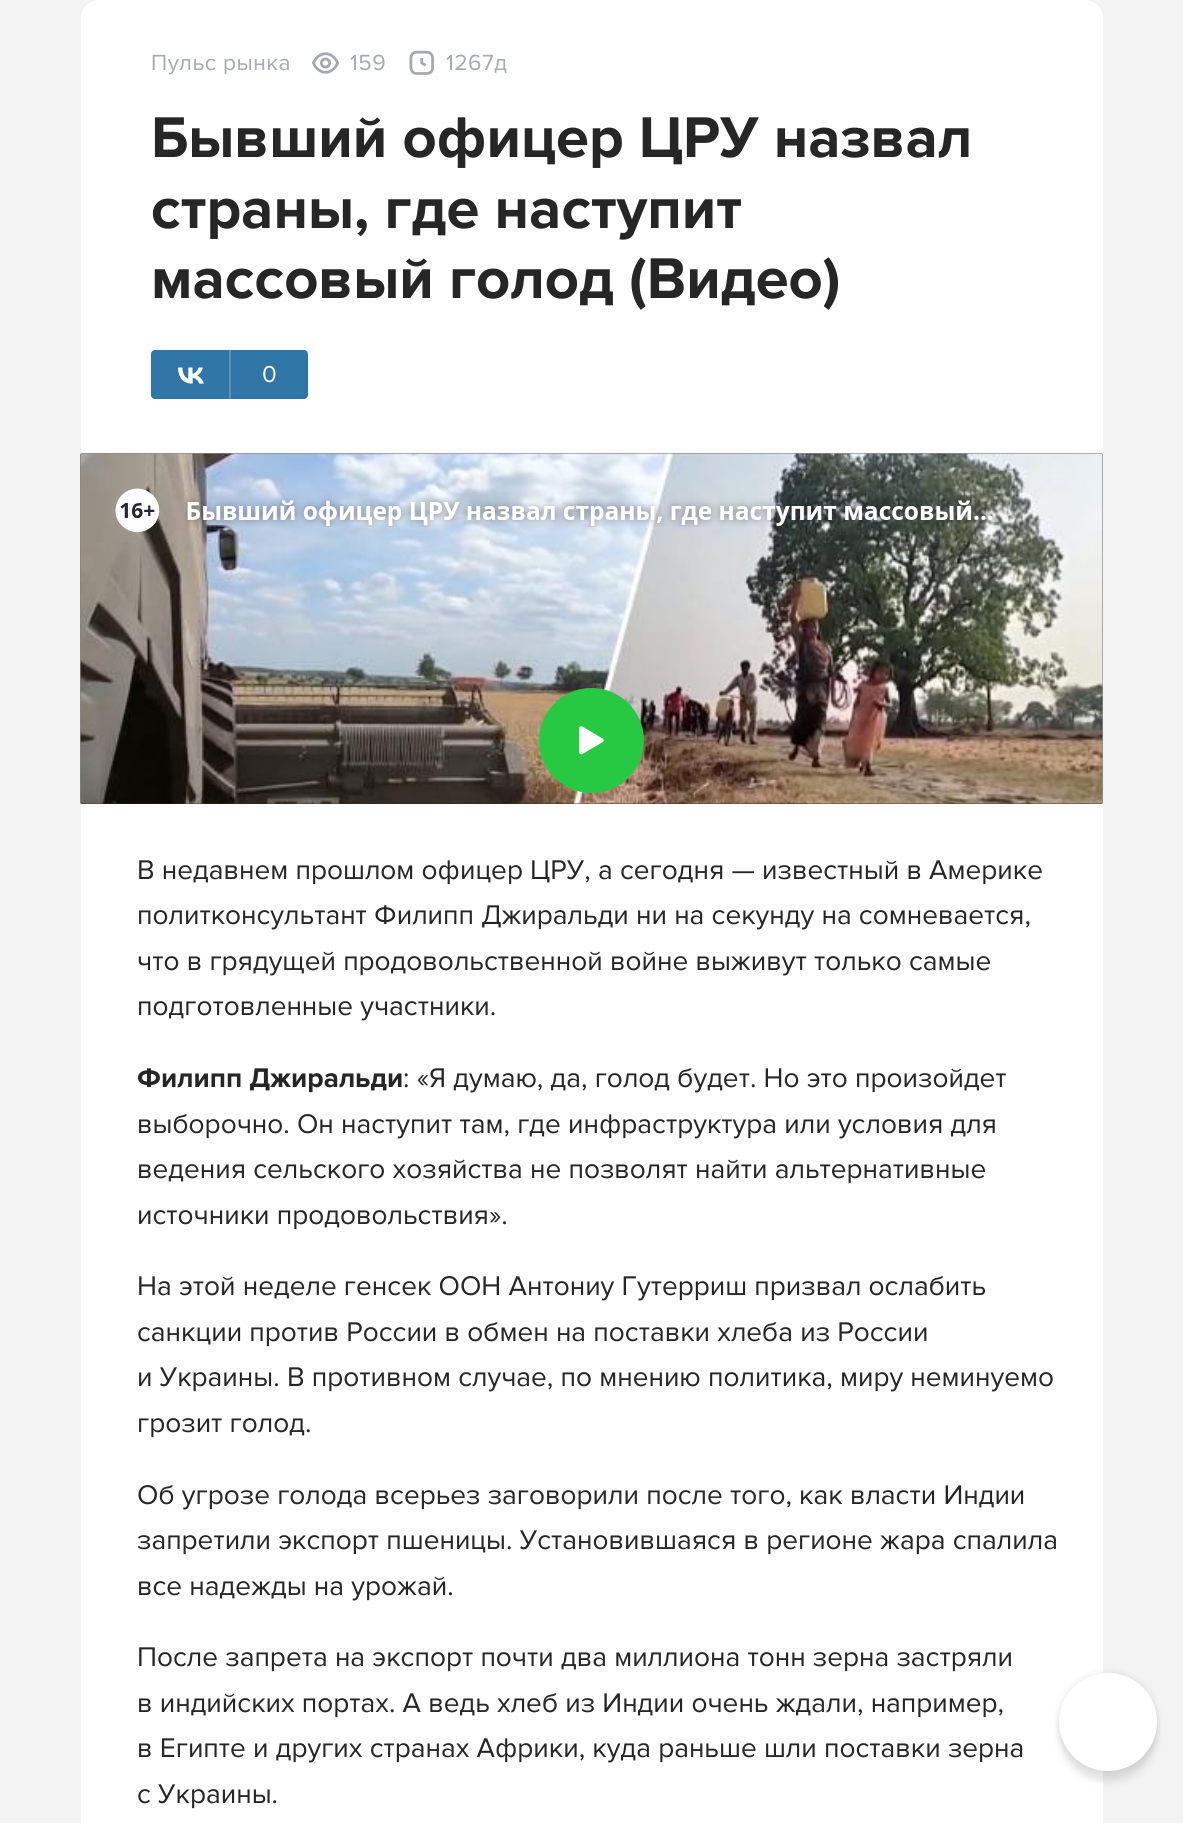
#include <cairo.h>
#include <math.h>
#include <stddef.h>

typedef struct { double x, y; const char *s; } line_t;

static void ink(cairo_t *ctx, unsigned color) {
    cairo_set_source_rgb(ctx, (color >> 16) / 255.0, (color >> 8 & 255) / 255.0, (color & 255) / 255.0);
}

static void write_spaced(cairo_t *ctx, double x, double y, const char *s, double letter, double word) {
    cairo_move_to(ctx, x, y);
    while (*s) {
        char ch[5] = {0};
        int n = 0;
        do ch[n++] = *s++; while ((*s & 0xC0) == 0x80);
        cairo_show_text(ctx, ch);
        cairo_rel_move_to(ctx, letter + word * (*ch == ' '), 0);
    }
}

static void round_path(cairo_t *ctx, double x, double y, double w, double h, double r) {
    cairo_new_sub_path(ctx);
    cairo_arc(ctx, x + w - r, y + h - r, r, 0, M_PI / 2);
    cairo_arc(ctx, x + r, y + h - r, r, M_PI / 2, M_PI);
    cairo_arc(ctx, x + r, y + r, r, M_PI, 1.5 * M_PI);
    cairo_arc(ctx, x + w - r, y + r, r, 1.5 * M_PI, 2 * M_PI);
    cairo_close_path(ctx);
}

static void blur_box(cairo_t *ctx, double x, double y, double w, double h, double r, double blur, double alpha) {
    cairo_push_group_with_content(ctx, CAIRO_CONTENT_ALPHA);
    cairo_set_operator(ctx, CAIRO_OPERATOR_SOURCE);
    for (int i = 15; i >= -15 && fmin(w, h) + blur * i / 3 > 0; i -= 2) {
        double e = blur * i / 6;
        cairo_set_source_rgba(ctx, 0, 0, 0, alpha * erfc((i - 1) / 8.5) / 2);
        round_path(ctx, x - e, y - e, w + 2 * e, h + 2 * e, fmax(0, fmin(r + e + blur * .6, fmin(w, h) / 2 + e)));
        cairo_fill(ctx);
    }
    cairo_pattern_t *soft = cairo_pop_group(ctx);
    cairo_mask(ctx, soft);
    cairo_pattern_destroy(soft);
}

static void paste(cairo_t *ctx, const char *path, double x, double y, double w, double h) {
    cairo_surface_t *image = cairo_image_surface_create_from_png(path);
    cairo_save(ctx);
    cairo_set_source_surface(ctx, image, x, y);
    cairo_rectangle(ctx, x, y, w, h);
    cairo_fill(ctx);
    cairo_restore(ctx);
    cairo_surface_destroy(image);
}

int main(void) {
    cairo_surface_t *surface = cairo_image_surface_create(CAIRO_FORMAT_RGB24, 1183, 1823);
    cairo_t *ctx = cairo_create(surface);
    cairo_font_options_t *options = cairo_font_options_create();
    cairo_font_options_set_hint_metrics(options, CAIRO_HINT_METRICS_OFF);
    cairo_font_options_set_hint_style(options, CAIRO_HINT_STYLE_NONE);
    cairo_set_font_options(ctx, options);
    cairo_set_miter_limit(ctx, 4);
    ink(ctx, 0xF3F3F3);
    cairo_paint(ctx);
    ink(ctx, 0xFFFFFF);
    round_path(ctx, 81, 0, 1022, 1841, 18);
    cairo_fill(ctx);
    cairo_select_font_face(ctx, "Proxima Nova", CAIRO_FONT_SLANT_NORMAL, CAIRO_FONT_WEIGHT_NORMAL);
    cairo_set_font_size(ctx, 22.75);
    ink(ctx, 0xA6A9B1);
    write_spaced(ctx, 151, 70, "Пульс рынка", 0.5, 0);
    paste(ctx, "media/1.png", 312, 52, 27, 22);
    write_spaced(ctx, 350, 70, "159", 0.5, 0);
    paste(ctx, "media/2.png", 409, 50, 25, 25);
    write_spaced(ctx, 446, 70, "1267д", 0.5, 0);
    cairo_select_font_face(ctx, "Proxima Nova", CAIRO_FONT_SLANT_NORMAL, CAIRO_FONT_WEIGHT_BOLD);
    cairo_set_font_size(ctx, 59.5);
    ink(ctx, 0x262626);
    {
        static const line_t items[] = {
            {151, 157, "Бывший офицер ЦРУ назвал"},
            {151, 228, "страны, где наступит"},
            {151, 298, "массовый голод (Видео)"},
        };
        for (size_t i = 0; i < sizeof items / sizeof *items; i++) {
            cairo_move_to(ctx, items[i].x, items[i].y);
            cairo_show_text(ctx, items[i].s);
        }
    }
    ink(ctx, 0x2F76A6);
    round_path(ctx, 151, 350, 157, 49, 4);
    cairo_fill(ctx);
    paste(ctx, "media/3.png", 178, 367, 26, 17);
    ink(ctx, 0x5991B8);
    cairo_rectangle(ctx, 229, 350, 2, 49);
    cairo_fill(ctx);
    cairo_select_font_face(ctx, "Proxima Nova", CAIRO_FONT_SLANT_NORMAL, CAIRO_FONT_WEIGHT_NORMAL);
    cairo_set_font_size(ctx, 24);
    ink(ctx, 0xFFFFFF);
    cairo_move_to(ctx, 262, 382);
    cairo_show_text(ctx, "0");
    paste(ctx, "media/4.png", 80, 453, 1023, 351);
    cairo_set_font_size(ctx, 28);
    ink(ctx, 0x262626);
    {
        static const line_t items[] = {
            {137, 879, "В недавнем прошлом офицер ЦРУ, а сегодня — известный в Америке"},
            {137, 924, "политконсультант Филипп Джиральди ни на секунду на сомневается,"},
            {137, 970, "что в грядущей продовольственной войне выживут только самые"},
            {137, 1015, "подготовленные участники."},
        };
        for (size_t i = 0; i < sizeof items / sizeof *items; i++) {
            cairo_move_to(ctx, items[i].x, items[i].y);
            cairo_show_text(ctx, items[i].s);
        }
    }
    cairo_select_font_face(ctx, "Proxima Nova", CAIRO_FONT_SLANT_NORMAL, CAIRO_FONT_WEIGHT_BOLD);
    cairo_move_to(ctx, 137, 1087);
    cairo_show_text(ctx, "Филипп Джиральди");
    cairo_select_font_face(ctx, "Proxima Nova", CAIRO_FONT_SLANT_NORMAL, CAIRO_FONT_WEIGHT_NORMAL);
    {
        static const line_t items[] = {
            {403, 1087, ": «Я думаю, да, голод будет. Но это произойдет"},
            {137, 1133, "выборочно. Он наступит там, где инфраструктура или условия для"},
            {137, 1178, "ведения сельского хозяйства не позволят найти альтернативные"},
            {137, 1224, "источники продовольствия»."},
            {137, 1295, "На этой неделе генсек ООН Антониу Гутерриш призвал ослабить"},
            {137, 1341, "санкции против России в обмен на поставки хлеба из России"},
            {137, 1386, "и Украины. В противном случае, по мнению политика, миру неминуемо"},
            {137, 1432, "грозит голод."},
            {137, 1504, "Об угрозе голода всерьез заговорили после того, как власти Индии"},
            {137, 1549, "запретили экспорт пшеницы. Установившаяся в регионе жара спалила"},
            {137, 1595, "все надежды на урожай."},
            {137, 1666, "После запрета на экспорт почти два миллиона тонн зерна застряли"},
            {137, 1712, "в индийских портах. А ведь хлеб из Индии очень ждали, например,"},
            {137, 1757, "в Египте и других странах Африки, куда раньше шли поставки зерна"},
            {137, 1803, "с Украины."},
        };
        for (size_t i = 0; i < sizeof items / sizeof *items; i++) {
            cairo_move_to(ctx, items[i].x, items[i].y);
            cairo_show_text(ctx, items[i].s);
        }
    }
    ink(ctx, 0x000000);
    blur_box(ctx, 1059, 1673, 98, 98, 49, 3.5, 0.1);
    blur_box(ctx, 1059, 1684, 98, 98, 49, 3.5, 0.1);
    ink(ctx, 0xFFFFFF);
    cairo_arc(ctx, 1108, 1722, 49, 0, 2 * M_PI);
    cairo_fill(ctx);
    cairo_surface_write_to_png(surface, "image.png");
    cairo_font_options_destroy(options);
    cairo_destroy(ctx);
    cairo_surface_destroy(surface);
    return 0;
}
